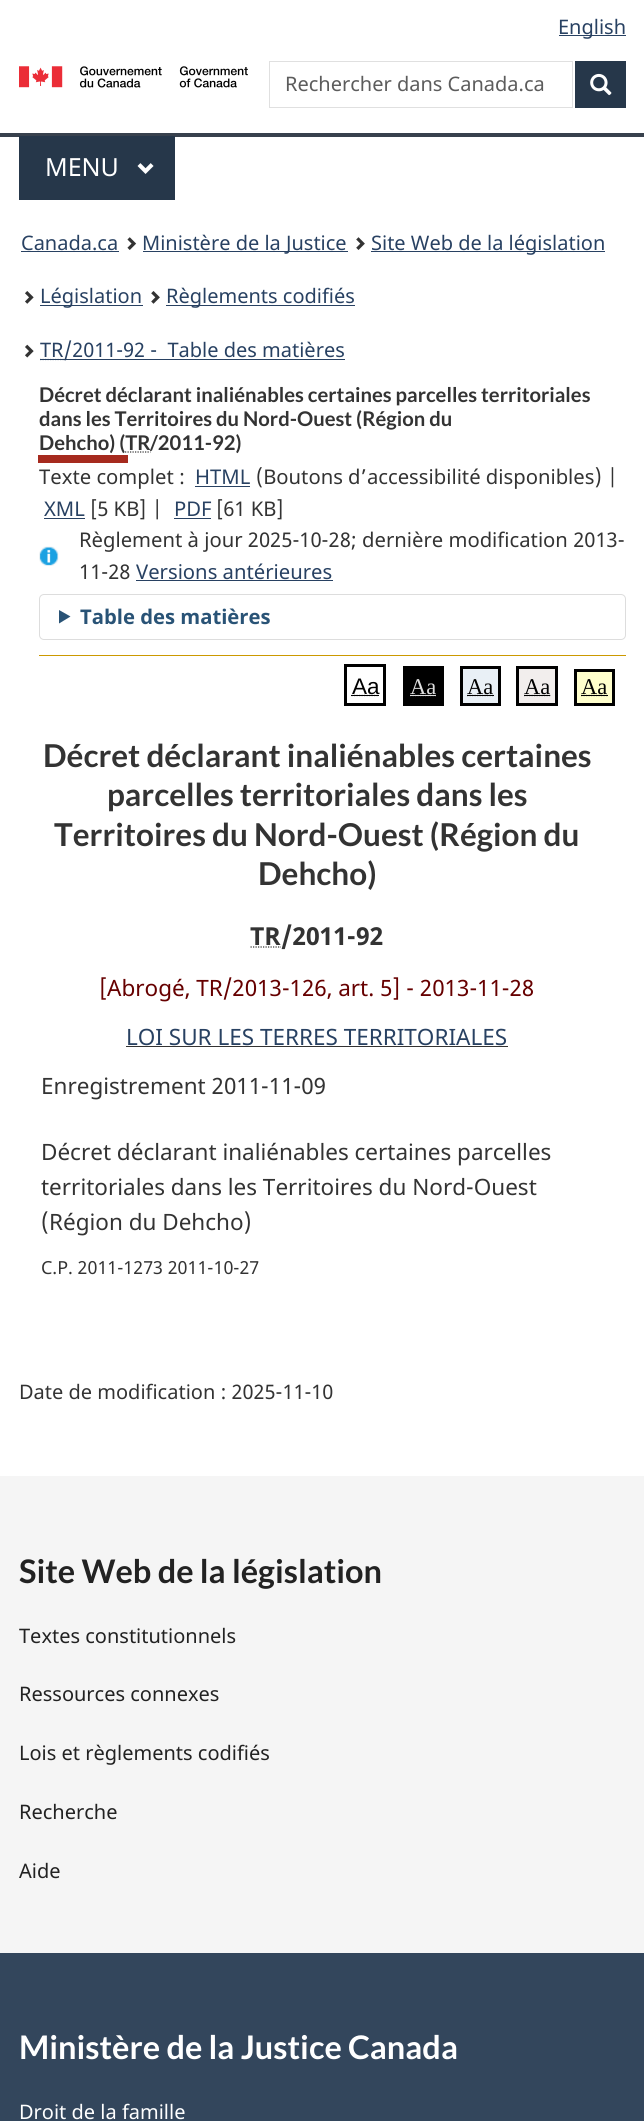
#include <cairo.h>
#include <math.h>
#include <stddef.h>

typedef struct { double x, y; const char *s; } line_t;

static void ink(cairo_t *ctx, unsigned color) {
    cairo_set_source_rgb(ctx, (color >> 16) / 255.0, (color >> 8 & 255) / 255.0, (color & 255) / 255.0);
}

static void round_path(cairo_t *ctx, double x, double y, double w, double h, double r) {
    cairo_new_sub_path(ctx);
    cairo_arc(ctx, x + w - r, y + h - r, r, 0, M_PI / 2);
    cairo_arc(ctx, x + r, y + h - r, r, M_PI / 2, M_PI);
    cairo_arc(ctx, x + r, y + r, r, M_PI, 1.5 * M_PI);
    cairo_arc(ctx, x + w - r, y + r, r, 1.5 * M_PI, 2 * M_PI);
    cairo_close_path(ctx);
}

static void paste(cairo_t *ctx, const char *path, double x, double y, double w, double h) {
    cairo_surface_t *image = cairo_image_surface_create_from_png(path);
    cairo_save(ctx);
    cairo_set_source_surface(ctx, image, x, y);
    cairo_rectangle(ctx, x, y, w, h);
    cairo_fill(ctx);
    cairo_restore(ctx);
    cairo_surface_destroy(image);
}

int main(void) {
    cairo_surface_t *surface = cairo_image_surface_create(CAIRO_FORMAT_RGB24, 644, 2121);
    cairo_t *ctx = cairo_create(surface);
    cairo_font_options_t *options = cairo_font_options_create();
    cairo_font_options_set_hint_metrics(options, CAIRO_HINT_METRICS_OFF);
    cairo_font_options_set_hint_style(options, CAIRO_HINT_STYLE_NONE);
    cairo_set_font_options(ctx, options);
    cairo_set_miter_limit(ctx, 4);
    ink(ctx, 0xFFFFFF);
    cairo_paint(ctx);
    ink(ctx, 0x284162);
    cairo_rectangle(ctx, 559, 35, 67, 1);
    cairo_fill(ctx);
    cairo_select_font_face(ctx, "Noto Sans", CAIRO_FONT_SLANT_NORMAL, CAIRO_FONT_WEIGHT_NORMAL);
    cairo_set_font_size(ctx, 20);
    cairo_move_to(ctx, 558, 34);
    cairo_show_text(ctx, "English");
    paste(ctx, "media/1.png", 19, 66, 229, 22);
    cairo_rectangle(ctx, 269.5, 61.5, 303, 46);
    ink(ctx, 0xE0E0E0);
    cairo_set_line_width(ctx, 1);
    cairo_stroke(ctx);
    ink(ctx, 0x5C5C5C);
    cairo_move_to(ctx, 285, 91);
    cairo_show_text(ctx, "Rechercher dans Canada.ca");
    ink(ctx, 0x26374A);
    cairo_rectangle(ctx, 575, 61, 51, 47);
    cairo_fill(ctx);
    paste(ctx, "media/2.png", 590, 73, 22, 23);
    ink(ctx, 0x38414D);
    cairo_rectangle(ctx, 0, 133, 644, 4);
    cairo_fill(ctx);
    ink(ctx, 0x26374A);
    cairo_rectangle(ctx, 19, 136, 156, 64);
    cairo_fill(ctx);
    cairo_set_font_size(ctx, 25);
    ink(ctx, 0xFFFFFF);
    cairo_move_to(ctx, 45, 176);
    cairo_show_text(ctx, "MENU");
    paste(ctx, "media/3.png", 137, 163, 17, 11);
    cairo_set_font_size(ctx, 20);
    ink(ctx, 0x284162);
    cairo_move_to(ctx, 21, 250);
    cairo_show_text(ctx, "Canada.ca");
    cairo_rectangle(ctx, 21, 251, 98, 1);
    cairo_fill(ctx);
    paste(ctx, "media/4.png", 127, 237, 10, 13);
    cairo_rectangle(ctx, 143, 251, 205, 1);
    cairo_fill(ctx);
    cairo_move_to(ctx, 142, 250);
    cairo_show_text(ctx, "Ministère de la Justice");
    paste(ctx, "media/5.png", 356, 237, 9, 13);
    cairo_rectangle(ctx, 371, 251, 234, 1);
    cairo_fill(ctx);
    cairo_move_to(ctx, 371, 250);
    cairo_show_text(ctx, "Site Web de la législation");
    paste(ctx, "media/6.png", 25, 291, 9, 13);
    cairo_rectangle(ctx, 40, 305, 103, 1);
    cairo_fill(ctx);
    cairo_move_to(ctx, 40, 303);
    cairo_show_text(ctx, "Législation");
    paste(ctx, "media/7.png", 151, 291, 9, 13);
    cairo_rectangle(ctx, 166, 305, 189, 1);
    cairo_fill(ctx);
    cairo_move_to(ctx, 166, 303);
    cairo_show_text(ctx, "Règlements codifiés");
    paste(ctx, "media/8.png", 25, 344, 9, 14);
    cairo_new_path(ctx);
    cairo_move_to(ctx, 40, 359.5);
    cairo_line_to(ctx, 64, 359.5);
    cairo_set_line_width(ctx, 1.2);
    cairo_set_dash(ctx, (double[]){1.25, 1.25}, 2, 0);
    cairo_stroke(ctx);
    cairo_rectangle(ctx, 40, 359, 305, 1);
    cairo_fill(ctx);
    cairo_move_to(ctx, 40, 357);
    cairo_show_text(ctx, "TR/2011-92 -  Table des matières");
    ink(ctx, 0xA62A1E);
    cairo_rectangle(ctx, 38, 455, 90, 8);
    cairo_fill(ctx);
    cairo_select_font_face(ctx, "Lato", CAIRO_FONT_SLANT_NORMAL, CAIRO_FONT_WEIGHT_BOLD);
    cairo_set_font_size(ctx, 20.25);
    ink(ctx, 0x333333);
    {
        static const line_t items[] = {
            {39, 402, "Décret déclarant inaliénables certaines parcelles territoriales"},
            {39, 426, "dans les Territoires du Nord-Ouest (Région du"},
            {39, 450, "Dehcho) (TR"},
        };
        for (size_t i = 0; i < sizeof items / sizeof *items; i++) {
            cairo_move_to(ctx, items[i].x, items[i].y);
            cairo_show_text(ctx, items[i].s);
        }
    }
    cairo_new_path(ctx);
    cairo_move_to(ctx, 125, 452);
    cairo_line_to(ctx, 150.5, 452);
    cairo_stroke(ctx);
    cairo_move_to(ctx, 150, 450);
    cairo_show_text(ctx, "/2011-92)");
    cairo_select_font_face(ctx, "Noto Sans", CAIRO_FONT_SLANT_NORMAL, CAIRO_FONT_WEIGHT_NORMAL);
    cairo_move_to(ctx, 39, 484);
    cairo_show_text(ctx, "Texte complet :");
    ink(ctx, 0x284162);
    cairo_move_to(ctx, 195, 484);
    cairo_show_text(ctx, "HTML");
    cairo_rectangle(ctx, 195, 486, 55, 1);
    cairo_fill(ctx);
    ink(ctx, 0x333333);
    cairo_move_to(ctx, 256, 484);
    cairo_show_text(ctx, "(Boutons d’accessibilité disponibles) |");
    ink(ctx, 0x284162);
    cairo_move_to(ctx, 44, 516);
    cairo_show_text(ctx, "XML");
    cairo_rectangle(ctx, 44, 518, 41, 1);
    cairo_fill(ctx);
    ink(ctx, 0x333333);
    cairo_move_to(ctx, 90, 516);
    cairo_show_text(ctx, "[5 KB] |");
    ink(ctx, 0x284162);
    cairo_move_to(ctx, 174, 516);
    cairo_show_text(ctx, "PDF");
    cairo_rectangle(ctx, 174, 518, 37, 1);
    cairo_fill(ctx);
    ink(ctx, 0x333333);
    cairo_move_to(ctx, 216, 516);
    cairo_show_text(ctx, "[61 KB]");
    paste(ctx, "media/9.png", 39, 546, 20, 20);
    cairo_move_to(ctx, 79, 547);
    cairo_show_text(ctx, "Règlement à jour 2025-10-28; dernière modification 2013-");
    cairo_move_to(ctx, 79, 579);
    cairo_show_text(ctx, "11-28");
    ink(ctx, 0x284162);
    cairo_move_to(ctx, 136, 579);
    cairo_show_text(ctx, "Versions antérieures");
    cairo_rectangle(ctx, 136, 580, 197, 1);
    cairo_fill(ctx);
    round_path(ctx, 39.5, 594.5, 586, 45, 4.5);
    ink(ctx, 0xDDDDDD);
    cairo_set_line_width(ctx, 1);
    cairo_set_dash(ctx, NULL, 0, 0);
    cairo_stroke(ctx);
    ink(ctx, 0x295376);
    cairo_new_path(ctx);
    cairo_move_to(ctx, 59, 610);
    cairo_line_to(ctx, 70.5, 616.5);
    cairo_line_to(ctx, 59, 623.5);
    cairo_close_path(ctx);
    cairo_fill(ctx);
    cairo_select_font_face(ctx, "Noto Sans", CAIRO_FONT_SLANT_NORMAL, CAIRO_FONT_WEIGHT_BOLD);
    cairo_move_to(ctx, 80, 624);
    cairo_show_text(ctx, "Table des matières");
    ink(ctx, 0xCC9900);
    cairo_rectangle(ctx, 39, 655, 587, 1);
    cairo_fill(ctx);
    cairo_rectangle(ctx, 345.5, 665.5, 39, 39);
    ink(ctx, 0x000000);
    cairo_set_line_width(ctx, 3);
    cairo_stroke(ctx);
    cairo_new_path(ctx);
    cairo_move_to(ctx, 351.5, 695.5);
    cairo_line_to(ctx, 379, 695.5);
    cairo_set_line_width(ctx, 1.2);
    cairo_set_dash(ctx, (double[]){1.25, 1.25}, 2, 0);
    cairo_stroke(ctx);
    cairo_select_font_face(ctx, "Liberation Sans", CAIRO_FONT_SLANT_NORMAL, CAIRO_FONT_WEIGHT_NORMAL);
    cairo_set_font_size(ctx, 22.5);
    cairo_move_to(ctx, 352, 694);
    cairo_show_text(ctx, "Aa");
    cairo_rectangle(ctx, 351, 695, 28, 1);
    cairo_fill(ctx);
    cairo_rectangle(ctx, 403, 666, 41, 40);
    cairo_fill(ctx);
    cairo_new_path(ctx);
    cairo_move_to(ctx, 410, 695.5);
    cairo_line_to(ctx, 436, 695.5);
    ink(ctx, 0xDDDDDD);
    cairo_stroke(ctx);
    cairo_select_font_face(ctx, "Liberation Serif", CAIRO_FONT_SLANT_NORMAL, CAIRO_FONT_WEIGHT_NORMAL);
    cairo_move_to(ctx, 410, 694);
    cairo_show_text(ctx, "Aa");
    cairo_rectangle(ctx, 410, 695, 26, 1);
    cairo_fill(ctx);
    ink(ctx, 0xE9F0F6);
    cairo_rectangle(ctx, 461.5, 667.5, 38, 37);
    cairo_fill_preserve(ctx);
    ink(ctx, 0x000000);
    cairo_set_line_width(ctx, 3);
    cairo_set_dash(ctx, NULL, 0, 0);
    cairo_stroke(ctx);
    cairo_new_path(ctx);
    cairo_move_to(ctx, 467, 695.5);
    cairo_line_to(ctx, 493.5, 695.5);
    cairo_set_line_width(ctx, 1.2);
    cairo_set_dash(ctx, (double[]){1.25, 1.25}, 2, 0);
    cairo_stroke(ctx);
    cairo_move_to(ctx, 467, 694);
    cairo_show_text(ctx, "Aa");
    cairo_rectangle(ctx, 468, 695, 26, 1);
    cairo_fill(ctx);
    ink(ctx, 0xF2EEED);
    cairo_rectangle(ctx, 517.5, 667.5, 39, 37);
    cairo_fill_preserve(ctx);
    ink(ctx, 0x000000);
    cairo_set_line_width(ctx, 3);
    cairo_set_dash(ctx, NULL, 0, 0);
    cairo_stroke(ctx);
    cairo_new_path(ctx);
    cairo_move_to(ctx, 524, 695.5);
    cairo_line_to(ctx, 550.5, 695.5);
    cairo_set_line_width(ctx, 1.2);
    cairo_set_dash(ctx, (double[]){1.25, 1.25}, 2, 0);
    cairo_stroke(ctx);
    cairo_move_to(ctx, 524, 694);
    cairo_show_text(ctx, "Aa");
    cairo_rectangle(ctx, 524, 695, 26, 1);
    cairo_fill(ctx);
    ink(ctx, 0xFFFFCC);
    cairo_rectangle(ctx, 575.5, 670.5, 38, 34);
    cairo_fill_preserve(ctx);
    ink(ctx, 0x000000);
    cairo_set_line_width(ctx, 3);
    cairo_set_dash(ctx, NULL, 0, 0);
    cairo_stroke(ctx);
    cairo_new_path(ctx);
    cairo_move_to(ctx, 581, 695.5);
    cairo_line_to(ctx, 607.5, 695.5);
    cairo_set_line_width(ctx, 1.2);
    cairo_set_dash(ctx, (double[]){1.25, 1.25}, 2, 0);
    cairo_stroke(ctx);
    cairo_move_to(ctx, 581, 694);
    cairo_show_text(ctx, "Aa");
    cairo_rectangle(ctx, 581, 695, 27, 1);
    cairo_fill(ctx);
    cairo_select_font_face(ctx, "Lato", CAIRO_FONT_SLANT_NORMAL, CAIRO_FONT_WEIGHT_BOLD);
    cairo_set_font_size(ctx, 31.5);
    ink(ctx, 0x333333);
    {
        static const line_t items[] = {
            {43, 767, "Décret déclarant inaliénables certaines"},
            {107, 806, "parcelles territoriales dans les"},
            {54, 846, "Territoires du Nord-Ouest (Région du"},
            {258, 885, "Dehcho)"},
        };
        for (size_t i = 0; i < sizeof items / sizeof *items; i++) {
            cairo_move_to(ctx, items[i].x, items[i].y);
            cairo_show_text(ctx, items[i].s);
        }
    }
    cairo_new_path(ctx);
    cairo_move_to(ctx, 250.5, 947);
    cairo_line_to(ctx, 281, 947);
    cairo_stroke(ctx);
    cairo_select_font_face(ctx, "Noto Sans", CAIRO_FONT_SLANT_NORMAL, CAIRO_FONT_WEIGHT_BOLD);
    cairo_set_font_size(ctx, 24.75);
    cairo_move_to(ctx, 250, 945);
    cairo_show_text(ctx, "TR/2011-92");
    cairo_select_font_face(ctx, "Noto Sans", CAIRO_FONT_SLANT_NORMAL, CAIRO_FONT_WEIGHT_NORMAL);
    cairo_set_font_size(ctx, 22.5);
    ink(ctx, 0x660000);
    cairo_move_to(ctx, 99, 996);
    cairo_show_text(ctx, "[Abrogé, TR/2013-126, art. 5] - 2013-11-28");
    ink(ctx, 0x284162);
    cairo_move_to(ctx, 126, 1045);
    cairo_show_text(ctx, "LOI SUR LES TERRES TERRITORIALES");
    ink(ctx, 0x333333);
    cairo_rectangle(ctx, 126, 1046, 382, 1);
    cairo_fill(ctx);
    {
        static const line_t items[] = {
            {41, 1094, "Enregistrement 2011-11-09"},
            {41, 1160, "Décret déclarant inaliénables certaines parcelles"},
            {41, 1195, "territoriales dans les Territoires du Nord-Ouest"},
            {41, 1230, "(Région du Dehcho)"},
        };
        for (size_t i = 0; i < sizeof items / sizeof *items; i++) {
            cairo_move_to(ctx, items[i].x, items[i].y);
            cairo_show_text(ctx, items[i].s);
        }
    }
    cairo_set_font_size(ctx, 18);
    cairo_move_to(ctx, 41, 1274);
    cairo_show_text(ctx, "C.P. 2011-1273 2011-10-27");
    cairo_set_font_size(ctx, 20);
    cairo_move_to(ctx, 19, 1399);
    cairo_show_text(ctx, "Date de modification : 2025-11-10");
    ink(ctx, 0xF5F5F5);
    cairo_rectangle(ctx, 0, 1476, 644, 477);
    cairo_fill(ctx);
    cairo_select_font_face(ctx, "Lato", CAIRO_FONT_SLANT_NORMAL, CAIRO_FONT_WEIGHT_BOLD);
    cairo_set_font_size(ctx, 32.5);
    ink(ctx, 0x222222);
    cairo_move_to(ctx, 19, 1583);
    cairo_show_text(ctx, "Site Web de la législation");
    cairo_select_font_face(ctx, "Noto Sans", CAIRO_FONT_SLANT_NORMAL, CAIRO_FONT_WEIGHT_NORMAL);
    cairo_set_font_size(ctx, 20);
    {
        static const line_t items[] = {
            {19, 1643, "Textes constitutionnels"},
            {19, 1701, "Ressources connexes"},
            {19, 1760, "Lois et règlements codifiés"},
            {19, 1819, "Recherche"},
            {19, 1878, "Aide"},
        };
        for (size_t i = 0; i < sizeof items / sizeof *items; i++) {
            cairo_move_to(ctx, items[i].x, items[i].y);
            cairo_show_text(ctx, items[i].s);
        }
    }
    ink(ctx, 0x33465C);
    cairo_rectangle(ctx, 0, 1953, 644, 168);
    cairo_fill(ctx);
    cairo_select_font_face(ctx, "Lato", CAIRO_FONT_SLANT_NORMAL, CAIRO_FONT_WEIGHT_BOLD);
    cairo_set_font_size(ctx, 32.5);
    ink(ctx, 0xFFFFFF);
    cairo_move_to(ctx, 19, 2059);
    cairo_show_text(ctx, "Ministère de la Justice Canada");
    cairo_select_font_face(ctx, "Noto Sans", CAIRO_FONT_SLANT_NORMAL, CAIRO_FONT_WEIGHT_NORMAL);
    cairo_set_font_size(ctx, 20);
    cairo_move_to(ctx, 19, 2119);
    cairo_show_text(ctx, "Droit de la famille");
    cairo_surface_write_to_png(surface, "image.png");
    cairo_font_options_destroy(options);
    cairo_destroy(ctx);
    cairo_surface_destroy(surface);
    return 0;
}
